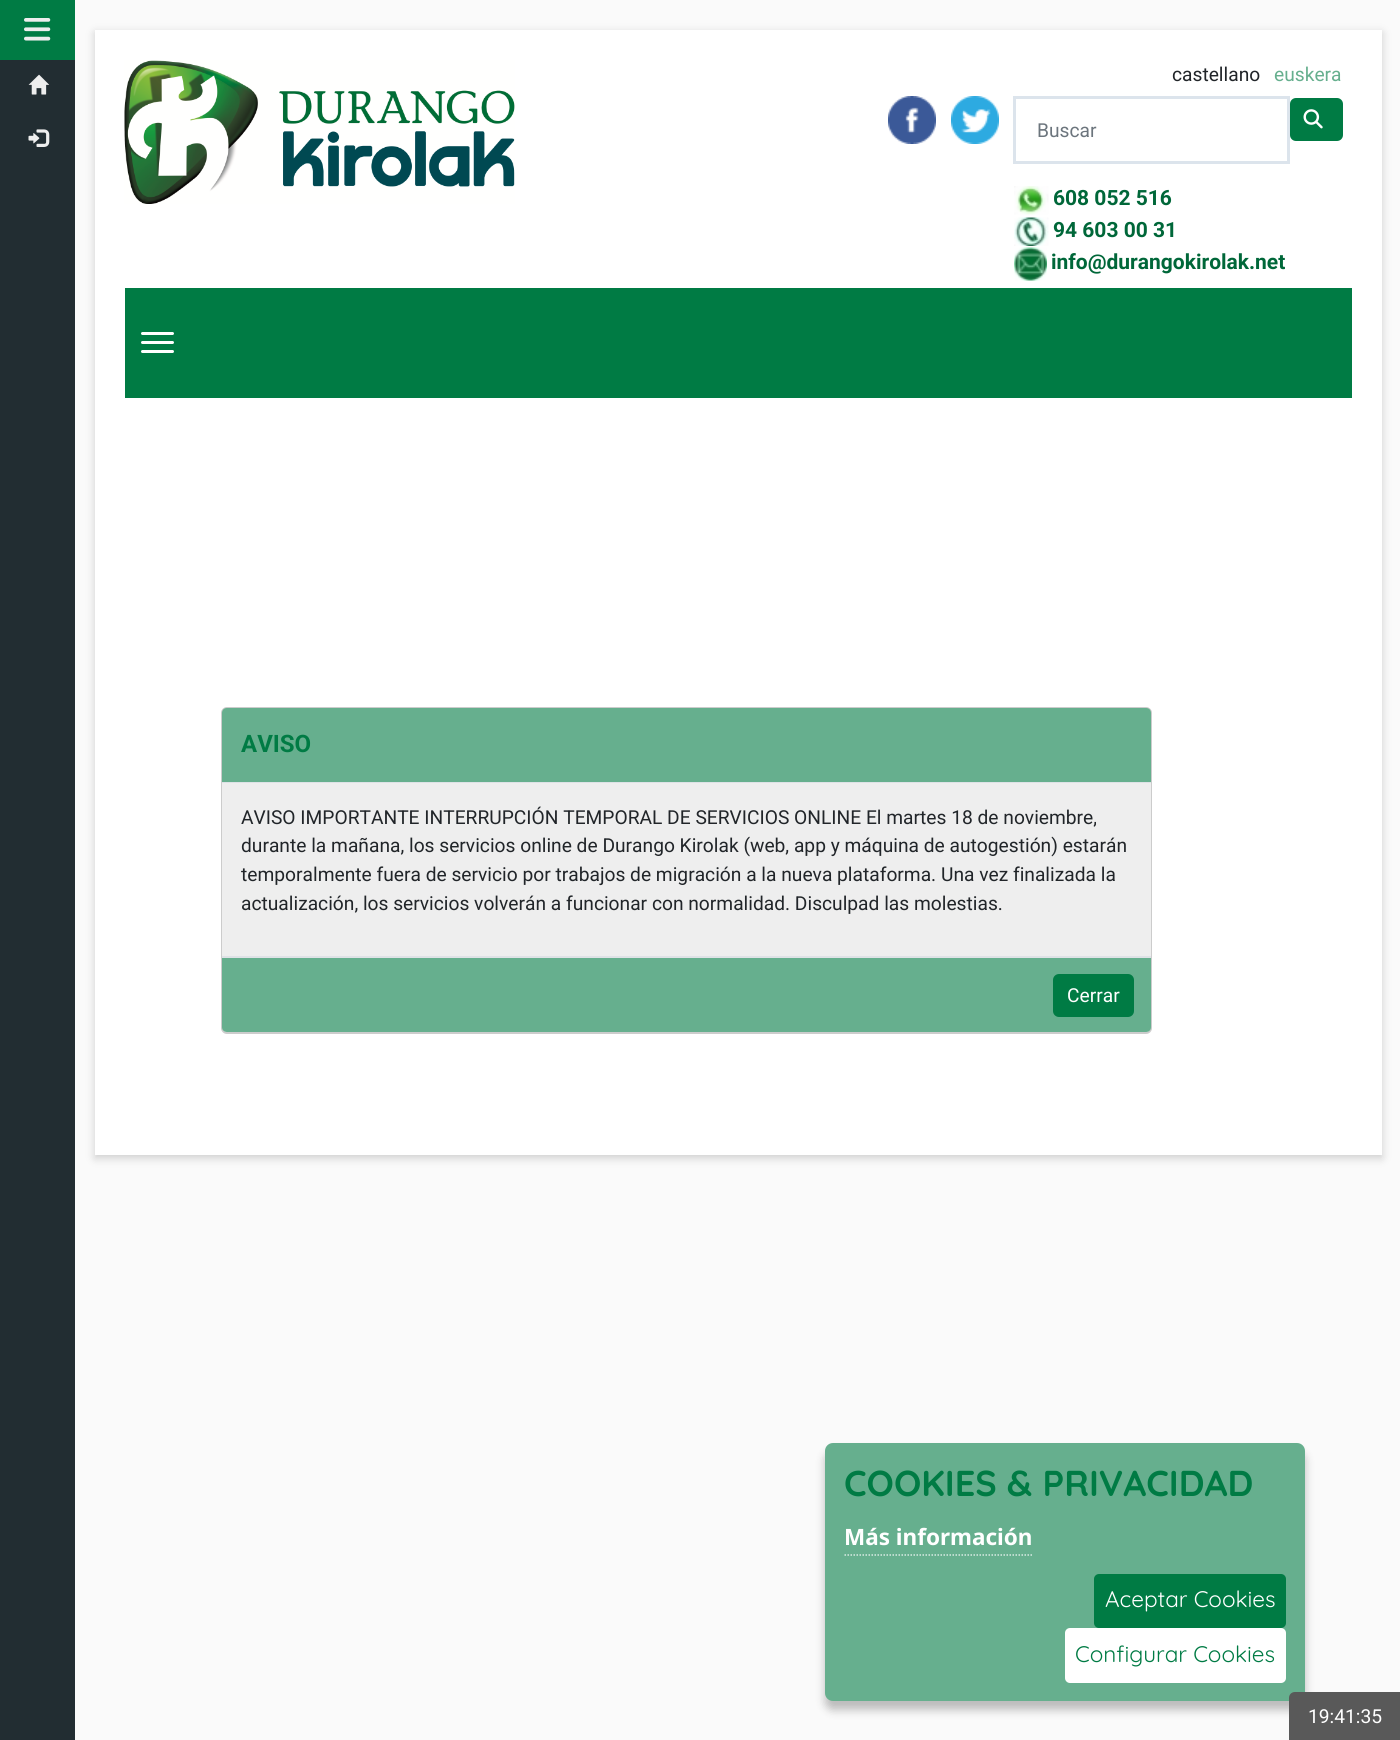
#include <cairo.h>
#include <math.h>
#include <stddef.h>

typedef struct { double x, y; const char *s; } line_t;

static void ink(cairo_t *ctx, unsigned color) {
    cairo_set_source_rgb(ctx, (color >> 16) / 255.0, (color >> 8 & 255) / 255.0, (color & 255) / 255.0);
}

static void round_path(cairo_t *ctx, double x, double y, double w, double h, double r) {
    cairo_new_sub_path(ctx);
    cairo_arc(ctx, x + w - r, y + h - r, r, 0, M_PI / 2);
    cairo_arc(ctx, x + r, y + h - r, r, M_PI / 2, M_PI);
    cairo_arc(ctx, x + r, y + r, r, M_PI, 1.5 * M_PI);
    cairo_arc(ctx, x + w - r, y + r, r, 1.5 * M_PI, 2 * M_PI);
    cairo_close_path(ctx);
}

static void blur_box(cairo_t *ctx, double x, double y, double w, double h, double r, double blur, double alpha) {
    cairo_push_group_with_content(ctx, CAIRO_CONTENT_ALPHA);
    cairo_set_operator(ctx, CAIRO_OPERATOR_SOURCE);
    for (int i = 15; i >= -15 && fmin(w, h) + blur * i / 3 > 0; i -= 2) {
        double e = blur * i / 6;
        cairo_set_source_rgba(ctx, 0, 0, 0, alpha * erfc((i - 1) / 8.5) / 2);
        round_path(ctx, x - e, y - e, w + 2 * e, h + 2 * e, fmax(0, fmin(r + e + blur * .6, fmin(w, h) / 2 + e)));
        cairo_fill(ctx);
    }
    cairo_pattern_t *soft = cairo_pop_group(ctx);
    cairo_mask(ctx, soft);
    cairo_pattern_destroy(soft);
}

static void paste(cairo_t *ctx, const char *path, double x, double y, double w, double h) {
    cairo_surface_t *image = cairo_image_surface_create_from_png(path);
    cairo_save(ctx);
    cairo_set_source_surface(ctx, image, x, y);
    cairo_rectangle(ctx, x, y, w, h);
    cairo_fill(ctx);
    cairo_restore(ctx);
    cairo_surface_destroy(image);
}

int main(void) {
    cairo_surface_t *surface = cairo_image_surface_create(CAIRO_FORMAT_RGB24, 1400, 1740);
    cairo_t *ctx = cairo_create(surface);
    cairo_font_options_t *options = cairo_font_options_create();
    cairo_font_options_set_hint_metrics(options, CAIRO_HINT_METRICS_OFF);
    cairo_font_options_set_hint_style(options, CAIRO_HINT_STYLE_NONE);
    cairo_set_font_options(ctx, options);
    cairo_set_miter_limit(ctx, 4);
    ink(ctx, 0xFAFAFA);
    cairo_paint(ctx);
    ink(ctx, 0x222D32);
    cairo_rectangle(ctx, 0, 60, 75, 1680);
    cairo_fill(ctx);
    ink(ctx, 0x007B44);
    cairo_rectangle(ctx, 0, 0, 75, 60);
    cairo_fill(ctx);
    paste(ctx, "media/1.png", 24, 18, 27, 23);
    paste(ctx, "media/2.png", 28, 74, 22, 21);
    paste(ctx, "media/3.png", 28, 129, 22, 18);
    ink(ctx, 0x646464);
    blur_box(ctx, 95, 33, 1287, 1125, 0, 4.5, 0.3);
    ink(ctx, 0xFFFFFF);
    cairo_rectangle(ctx, 95, 30, 1287, 1125);
    cairo_fill(ctx);
    paste(ctx, "media/4.png", 124, 60, 391, 144);
    cairo_select_font_face(ctx, "Roboto", CAIRO_FONT_SLANT_NORMAL, CAIRO_FONT_WEIGHT_NORMAL);
    cairo_set_font_size(ctx, 19.2);
    ink(ctx, 0x212529);
    cairo_move_to(ctx, 1172, 81);
    cairo_show_text(ctx, "castellano");
    ink(ctx, 0x66AF8E);
    cairo_move_to(ctx, 1274, 81);
    cairo_show_text(ctx, "euskera");
    paste(ctx, "media/5.png", 888, 96, 48, 48);
    paste(ctx, "media/6.png", 951, 96, 48, 48);
    cairo_rectangle(ctx, 1014.5, 97.5, 274, 65);
    ink(ctx, 0xDCE4EC);
    cairo_set_line_width(ctx, 3);
    cairo_stroke(ctx);
    ink(ctx, 0x6C757D);
    cairo_move_to(ctx, 1037, 137);
    cairo_show_text(ctx, "Buscar");
    ink(ctx, 0x007B44);
    round_path(ctx, 1290, 98, 53, 43, 6);
    cairo_fill(ctx);
    paste(ctx, "media/7.png", 1303, 109, 20, 20);
    paste(ctx, "media/8.png", 1014, 186, 35, 29);
    cairo_select_font_face(ctx, "Roboto", CAIRO_FONT_SLANT_NORMAL, CAIRO_FONT_WEIGHT_BOLD);
    cairo_set_font_size(ctx, 21);
    ink(ctx, 0x006739);
    cairo_move_to(ctx, 1053, 205);
    cairo_show_text(ctx, "608 052 516");
    paste(ctx, "media/9.png", 1014, 217, 35, 29);
    cairo_move_to(ctx, 1053, 237);
    cairo_show_text(ctx, "94 603 00 31");
    paste(ctx, "media/10.png", 1014, 247, 33, 34);
    cairo_move_to(ctx, 1051, 269);
    cairo_show_text(ctx, "info@durangokirolak.net");
    ink(ctx, 0x007B44);
    cairo_rectangle(ctx, 125, 288, 1227, 110);
    cairo_fill(ctx);
    ink(ctx, 0xFFFFFF);
    round_path(ctx, 141, 332, 33, 3, 1.5);
    cairo_fill(ctx);
    round_path(ctx, 141, 341, 33, 3, 1.5);
    cairo_fill(ctx);
    round_path(ctx, 141, 350, 33, 3, 1.5);
    cairo_fill(ctx);
    round_path(ctx, 222, 708, 929, 325, 5);
    ink(ctx, 0xCCCCCC);
    cairo_set_line_width(ctx, 2);
    cairo_stroke(ctx);
    ink(ctx, 0x66AF8E);
    cairo_new_path(ctx);
    cairo_move_to(ctx, 227, 708);
    cairo_line_to(ctx, 1146, 708);
    cairo_curve_to(ctx, 1149, 708, 1151, 710, 1151, 713);
    cairo_line_to(ctx, 1151, 783);
    cairo_line_to(ctx, 222, 783);
    cairo_line_to(ctx, 222, 713);
    cairo_curve_to(ctx, 222, 710, 224, 708, 227, 708);
    cairo_close_path(ctx);
    cairo_fill(ctx);
    ink(ctx, 0xDEE2E6);
    cairo_rectangle(ctx, 222, 782, 929, 1);
    cairo_fill(ctx);
    cairo_set_font_size(ctx, 24);
    ink(ctx, 0x007B44);
    cairo_move_to(ctx, 241, 752);
    cairo_show_text(ctx, "AVISO");
    ink(ctx, 0xEEEEEE);
    cairo_rectangle(ctx, 222, 783, 929, 173);
    cairo_fill(ctx);
    cairo_select_font_face(ctx, "Roboto", CAIRO_FONT_SLANT_NORMAL, CAIRO_FONT_WEIGHT_NORMAL);
    cairo_set_font_size(ctx, 19.2);
    ink(ctx, 0x212529);
    {
        static const line_t items[] = {
            {241, 824, "AVISO IMPORTANTE INTERRUPCIÓN TEMPORAL DE SERVICIOS ONLINE El martes 18 de noviembre,"},
            {241, 852, "durante la mañana, los servicios online de Durango Kirolak (web, app y máquina de autogestión) estarán"},
            {241, 881, "temporalmente fuera de servicio por trabajos de migración a la nueva plataforma. Una vez finalizada la"},
            {241, 910, "actualización, los servicios volverán a funcionar con normalidad. Disculpad las molestias."},
        };
        for (size_t i = 0; i < sizeof items / sizeof *items; i++) {
            cairo_move_to(ctx, items[i].x, items[i].y);
            cairo_show_text(ctx, items[i].s);
        }
    }
    ink(ctx, 0x66AF8E);
    cairo_new_path(ctx);
    cairo_move_to(ctx, 222, 956);
    cairo_line_to(ctx, 1151, 956);
    cairo_line_to(ctx, 1151, 1027);
    cairo_curve_to(ctx, 1151, 1030, 1149, 1032, 1146, 1032);
    cairo_line_to(ctx, 227, 1032);
    cairo_curve_to(ctx, 224, 1032, 222, 1030, 222, 1027);
    cairo_close_path(ctx);
    cairo_fill(ctx);
    ink(ctx, 0xDEE2E6);
    cairo_rectangle(ctx, 222, 956, 929, 2);
    cairo_fill(ctx);
    ink(ctx, 0x007B44);
    round_path(ctx, 1053, 974, 81, 43, 6);
    cairo_fill(ctx);
    ink(ctx, 0xFFFFFF);
    cairo_move_to(ctx, 1067, 1002);
    cairo_show_text(ctx, "Cerrar");
    ink(ctx, 0x000000);
    blur_box(ctx, 825, 1452, 480, 258, 8, 4.5, 0.25);
    ink(ctx, 0x66AF8E);
    round_path(ctx, 825, 1443, 480, 258, 8);
    cairo_fill(ctx);
    cairo_select_font_face(ctx, "Quicksand", CAIRO_FONT_SLANT_NORMAL, CAIRO_FONT_WEIGHT_BOLD);
    cairo_set_font_size(ctx, 36);
    ink(ctx, 0x007B44);
    cairo_move_to(ctx, 844, 1496);
    cairo_show_text(ctx, "COOKIES & PRIVACIDAD");
    cairo_select_font_face(ctx, "Noto Sans", CAIRO_FONT_SLANT_NORMAL, CAIRO_FONT_WEIGHT_BOLD);
    cairo_set_font_size(ctx, 22.5);
    ink(ctx, 0xFFFFFF);
    cairo_move_to(ctx, 844, 1545);
    cairo_show_text(ctx, "Más información");
    cairo_new_path(ctx);
    cairo_move_to(ctx, 844.5, 1555);
    cairo_line_to(ctx, 1032, 1555);
    ink(ctx, 0xD9EBE3);
    cairo_set_line_width(ctx, 1.5);
    cairo_set_dash(ctx, (double[]){1.5, 1.5}, 2, 0);
    cairo_stroke(ctx);
    ink(ctx, 0x007B44);
    round_path(ctx, 1094, 1574, 192, 54, 5);
    cairo_fill(ctx);
    cairo_select_font_face(ctx, "Quicksand", CAIRO_FONT_SLANT_NORMAL, CAIRO_FONT_WEIGHT_NORMAL);
    ink(ctx, 0xFFFFFF);
    cairo_move_to(ctx, 1105, 1607);
    cairo_show_text(ctx, "Aceptar Cookies");
    round_path(ctx, 1065, 1628, 221, 55, 5);
    cairo_fill(ctx);
    ink(ctx, 0x007B44);
    cairo_move_to(ctx, 1075, 1662);
    cairo_show_text(ctx, "Configurar Cookies");
    ink(ctx, 0x595959);
    cairo_new_path(ctx);
    cairo_move_to(ctx, 1295, 1692);
    cairo_line_to(ctx, 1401, 1692);
    cairo_line_to(ctx, 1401, 1740);
    cairo_line_to(ctx, 1289, 1740);
    cairo_line_to(ctx, 1289, 1698);
    cairo_curve_to(ctx, 1289, 1694.5, 1291.5, 1692, 1295, 1692);
    cairo_close_path(ctx);
    cairo_fill(ctx);
    cairo_select_font_face(ctx, "Roboto", CAIRO_FONT_SLANT_NORMAL, CAIRO_FONT_WEIGHT_NORMAL);
    cairo_set_font_size(ctx, 19.2);
    ink(ctx, 0xFFFFFF);
    cairo_move_to(ctx, 1308, 1723);
    cairo_show_text(ctx, "19:41:35");
    cairo_surface_write_to_png(surface, "image.png");
    cairo_font_options_destroy(options);
    cairo_destroy(ctx);
    cairo_surface_destroy(surface);
    return 0;
}
